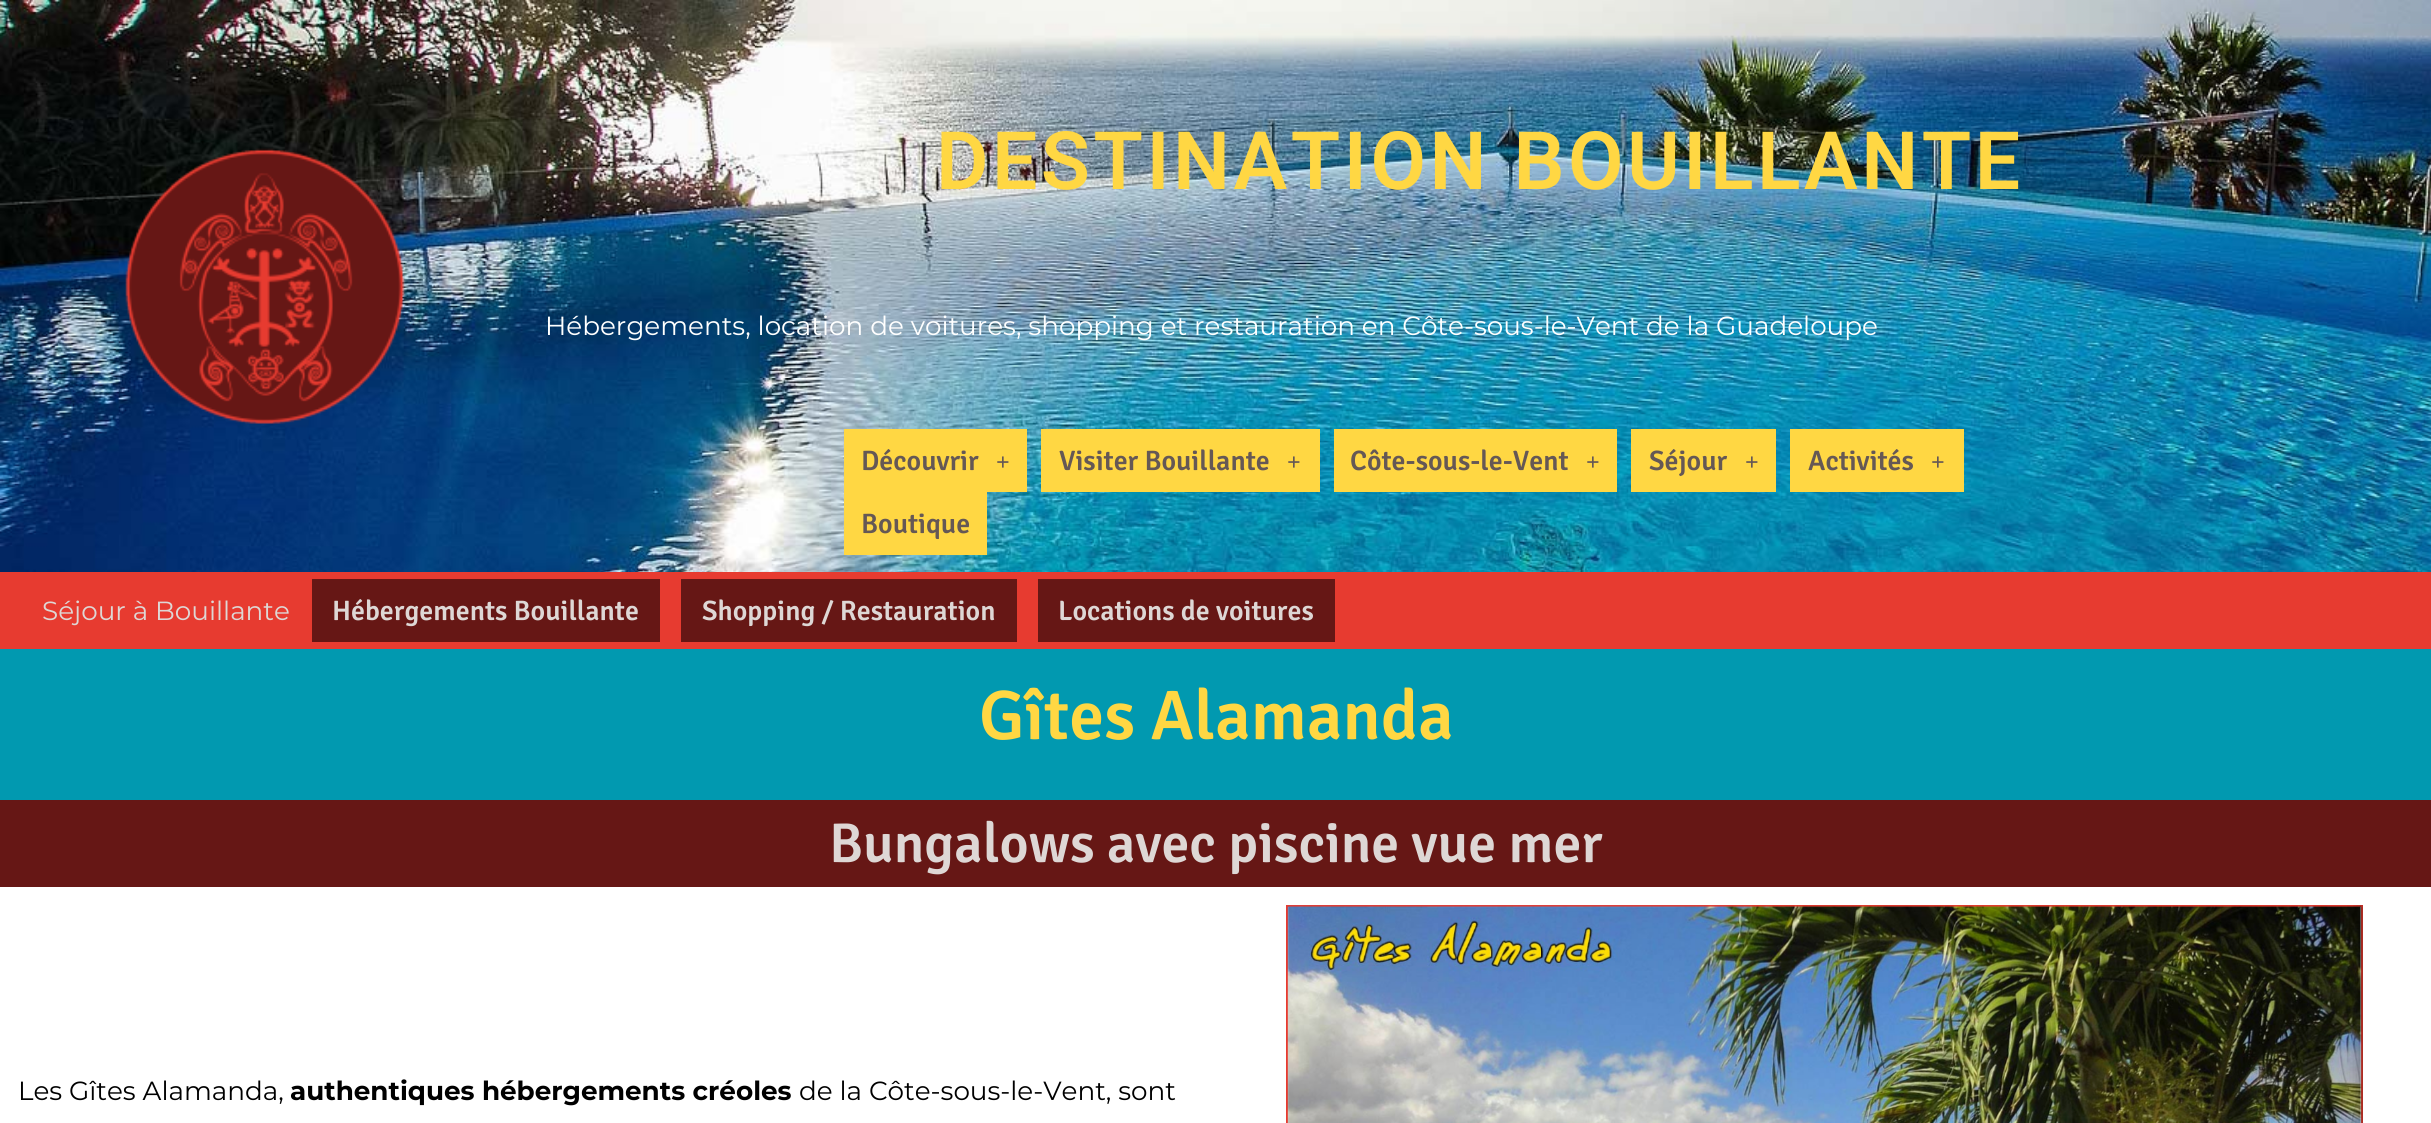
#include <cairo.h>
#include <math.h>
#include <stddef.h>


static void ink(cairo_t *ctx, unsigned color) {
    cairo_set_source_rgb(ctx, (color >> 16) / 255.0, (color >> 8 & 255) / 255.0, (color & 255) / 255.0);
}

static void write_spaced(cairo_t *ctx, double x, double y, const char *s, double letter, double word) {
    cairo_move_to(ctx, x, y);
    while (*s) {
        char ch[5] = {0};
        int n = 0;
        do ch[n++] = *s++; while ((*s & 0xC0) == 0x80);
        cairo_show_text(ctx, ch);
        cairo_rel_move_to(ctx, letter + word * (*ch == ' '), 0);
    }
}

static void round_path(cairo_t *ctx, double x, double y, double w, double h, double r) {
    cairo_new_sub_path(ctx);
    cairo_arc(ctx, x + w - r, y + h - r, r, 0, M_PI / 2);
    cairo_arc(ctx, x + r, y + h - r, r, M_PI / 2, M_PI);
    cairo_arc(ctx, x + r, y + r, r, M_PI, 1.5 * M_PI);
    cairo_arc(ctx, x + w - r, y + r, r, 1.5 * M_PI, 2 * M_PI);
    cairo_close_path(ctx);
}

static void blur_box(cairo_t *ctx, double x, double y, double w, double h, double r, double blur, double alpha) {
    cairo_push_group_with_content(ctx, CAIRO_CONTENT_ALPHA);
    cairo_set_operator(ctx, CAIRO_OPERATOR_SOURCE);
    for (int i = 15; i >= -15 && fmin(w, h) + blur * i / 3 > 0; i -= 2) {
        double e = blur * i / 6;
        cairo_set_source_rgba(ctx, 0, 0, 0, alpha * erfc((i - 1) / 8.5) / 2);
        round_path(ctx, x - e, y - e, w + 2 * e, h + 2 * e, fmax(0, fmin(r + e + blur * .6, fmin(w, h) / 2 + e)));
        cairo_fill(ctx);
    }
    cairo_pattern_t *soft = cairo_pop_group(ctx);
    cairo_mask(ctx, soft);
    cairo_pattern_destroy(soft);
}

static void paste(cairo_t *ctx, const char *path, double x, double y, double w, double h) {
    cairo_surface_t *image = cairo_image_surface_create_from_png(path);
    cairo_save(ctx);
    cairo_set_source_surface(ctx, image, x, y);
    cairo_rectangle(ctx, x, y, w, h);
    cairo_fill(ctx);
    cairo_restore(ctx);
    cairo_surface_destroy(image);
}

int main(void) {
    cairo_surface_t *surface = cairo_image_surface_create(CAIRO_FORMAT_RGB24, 2431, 1123);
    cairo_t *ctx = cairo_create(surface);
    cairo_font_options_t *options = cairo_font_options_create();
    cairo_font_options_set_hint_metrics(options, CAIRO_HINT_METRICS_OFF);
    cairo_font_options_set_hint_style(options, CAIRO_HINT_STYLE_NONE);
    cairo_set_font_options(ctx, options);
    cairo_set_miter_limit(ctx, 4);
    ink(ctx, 0xFFFFFF);
    cairo_paint(ctx);
    paste(ctx, "media/1.png", 0, 0, 2431, 572);
    paste(ctx, "media/2.png", 125, 148, 280, 276);
    cairo_select_font_face(ctx, "Roboto SemiBold", CAIRO_FONT_SLANT_NORMAL, CAIRO_FONT_WEIGHT_NORMAL);
    cairo_set_font_size(ctx, 80.5);
    ink(ctx, 0xFFD743);
    write_spaced(ctx, 936, 189, "DESTINATION BOUILLANTE", 3.5, 0);
    cairo_select_font_face(ctx, "Montserrat", CAIRO_FONT_SLANT_NORMAL, CAIRO_FONT_WEIGHT_NORMAL);
    cairo_set_font_size(ctx, 26.25);
    ink(ctx, 0xFFFFFF);
    cairo_move_to(ctx, 545, 335);
    cairo_show_text(ctx, "Hébergements, location de voitures, shopping et restauration en Côte-sous-le-Vent de la Guadeloupe");
    ink(ctx, 0xFFD743);
    cairo_rectangle(ctx, 844, 429, 183, 63);
    cairo_fill(ctx);
    cairo_select_font_face(ctx, "Signika Negative SemiBold", CAIRO_FONT_SLANT_NORMAL, CAIRO_FONT_WEIGHT_NORMAL);
    cairo_set_font_size(ctx, 28);
    ink(ctx, 0x655855);
    cairo_move_to(ctx, 861, 470);
    cairo_show_text(ctx, "Découvrir");
    cairo_select_font_face(ctx, "Liberation Serif", CAIRO_FONT_SLANT_NORMAL, CAIRO_FONT_WEIGHT_BOLD);
    cairo_set_font_size(ctx, 24);
    cairo_move_to(ctx, 996, 470);
    cairo_show_text(ctx, "+");
    ink(ctx, 0xFFD743);
    cairo_rectangle(ctx, 1041, 429, 279, 63);
    cairo_fill(ctx);
    cairo_select_font_face(ctx, "Signika Negative SemiBold", CAIRO_FONT_SLANT_NORMAL, CAIRO_FONT_WEIGHT_NORMAL);
    cairo_set_font_size(ctx, 28);
    ink(ctx, 0x655855);
    cairo_move_to(ctx, 1059, 470);
    cairo_show_text(ctx, "Visiter Bouillante");
    cairo_select_font_face(ctx, "Liberation Serif", CAIRO_FONT_SLANT_NORMAL, CAIRO_FONT_WEIGHT_BOLD);
    cairo_set_font_size(ctx, 24);
    cairo_move_to(ctx, 1287, 470);
    cairo_show_text(ctx, "+");
    ink(ctx, 0xFFD743);
    cairo_rectangle(ctx, 1334, 429, 283, 63);
    cairo_fill(ctx);
    cairo_select_font_face(ctx, "Signika Negative SemiBold", CAIRO_FONT_SLANT_NORMAL, CAIRO_FONT_WEIGHT_NORMAL);
    cairo_set_font_size(ctx, 28);
    ink(ctx, 0x655855);
    cairo_move_to(ctx, 1350, 470);
    cairo_show_text(ctx, "Côte-sous-le-Vent");
    cairo_select_font_face(ctx, "Liberation Serif", CAIRO_FONT_SLANT_NORMAL, CAIRO_FONT_WEIGHT_BOLD);
    cairo_set_font_size(ctx, 24);
    cairo_move_to(ctx, 1586, 470);
    cairo_show_text(ctx, "+");
    ink(ctx, 0xFFD743);
    cairo_rectangle(ctx, 1631, 429, 145, 63);
    cairo_fill(ctx);
    cairo_select_font_face(ctx, "Signika Negative SemiBold", CAIRO_FONT_SLANT_NORMAL, CAIRO_FONT_WEIGHT_NORMAL);
    cairo_set_font_size(ctx, 28);
    ink(ctx, 0x655855);
    cairo_move_to(ctx, 1649, 470);
    cairo_show_text(ctx, "Séjour");
    cairo_select_font_face(ctx, "Liberation Serif", CAIRO_FONT_SLANT_NORMAL, CAIRO_FONT_WEIGHT_BOLD);
    cairo_set_font_size(ctx, 24);
    cairo_move_to(ctx, 1745, 470);
    cairo_show_text(ctx, "+");
    ink(ctx, 0xFFD743);
    cairo_rectangle(ctx, 1790, 429, 174, 63);
    cairo_fill(ctx);
    cairo_select_font_face(ctx, "Signika Negative SemiBold", CAIRO_FONT_SLANT_NORMAL, CAIRO_FONT_WEIGHT_NORMAL);
    cairo_set_font_size(ctx, 28);
    ink(ctx, 0x655855);
    cairo_move_to(ctx, 1808, 470);
    cairo_show_text(ctx, "Activités");
    cairo_select_font_face(ctx, "Liberation Serif", CAIRO_FONT_SLANT_NORMAL, CAIRO_FONT_WEIGHT_BOLD);
    cairo_set_font_size(ctx, 24);
    cairo_move_to(ctx, 1931, 470);
    cairo_show_text(ctx, "+");
    ink(ctx, 0xFFD743);
    cairo_rectangle(ctx, 844, 492, 143, 63);
    cairo_fill(ctx);
    cairo_select_font_face(ctx, "Signika Negative SemiBold", CAIRO_FONT_SLANT_NORMAL, CAIRO_FONT_WEIGHT_NORMAL);
    cairo_set_font_size(ctx, 28);
    ink(ctx, 0x655855);
    cairo_move_to(ctx, 861, 533);
    cairo_show_text(ctx, "Boutique");
    ink(ctx, 0xE73B30);
    cairo_rectangle(ctx, 0, 572, 2431, 77);
    cairo_fill(ctx);
    cairo_select_font_face(ctx, "Montserrat", CAIRO_FONT_SLANT_NORMAL, CAIRO_FONT_WEIGHT_NORMAL);
    cairo_set_font_size(ctx, 26.25);
    ink(ctx, 0xDED7D5);
    cairo_move_to(ctx, 42, 620);
    cairo_show_text(ctx, "Séjour à Bouillante");
    ink(ctx, 0x661715);
    cairo_rectangle(ctx, 312, 579, 348, 63);
    cairo_fill(ctx);
    cairo_select_font_face(ctx, "Signika Negative SemiBold", CAIRO_FONT_SLANT_NORMAL, CAIRO_FONT_WEIGHT_NORMAL);
    cairo_set_font_size(ctx, 28);
    ink(ctx, 0xDED7D5);
    cairo_move_to(ctx, 332, 620);
    cairo_show_text(ctx, "Hébergements Bouillante");
    ink(ctx, 0x661715);
    cairo_rectangle(ctx, 681, 579, 336, 63);
    cairo_fill(ctx);
    ink(ctx, 0xDED7D5);
    cairo_move_to(ctx, 702, 620);
    cairo_show_text(ctx, "Shopping / Restauration");
    ink(ctx, 0x661715);
    cairo_rectangle(ctx, 1038, 579, 297, 63);
    cairo_fill(ctx);
    ink(ctx, 0xDED7D5);
    cairo_move_to(ctx, 1058, 620);
    cairo_show_text(ctx, "Locations de voitures");
    ink(ctx, 0x0199B0);
    cairo_rectangle(ctx, 0, 649, 2431, 151);
    cairo_fill(ctx);
    cairo_set_font_size(ctx, 70);
    ink(ctx, 0xFFD743);
    cairo_move_to(ctx, 979, 739);
    cairo_show_text(ctx, "Gîtes Alamanda");
    ink(ctx, 0x661715);
    cairo_rectangle(ctx, 0, 800, 2431, 87);
    cairo_fill(ctx);
    cairo_set_font_size(ctx, 56);
    ink(ctx, 0xDED7D5);
    cairo_move_to(ctx, 829, 862);
    cairo_show_text(ctx, "Bungalows avec piscine vue mer");
    cairo_save(ctx);
    cairo_rectangle(ctx, 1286, 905, 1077, 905);
    cairo_clip(ctx);
    ink(ctx, 0x000000);
    blur_box(ctx, 210, 905, 1076, 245, 0, 9, 0.5);
    cairo_restore(ctx);
    cairo_rectangle(ctx, 1287, 906, 1075, 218);
    ink(ctx, 0xE73B30);
    cairo_stroke(ctx);
    paste(ctx, "media/3.png", 1287, 905, 1075, 218);
    cairo_save(ctx);
    cairo_rectangle(ctx, 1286, 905, 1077, 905);
    cairo_clip(ctx);
    ink(ctx, 0x000000);
    blur_box(ctx, 2363, 905, 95, 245, 0, 9, 0.5);
    cairo_restore(ctx);
    cairo_select_font_face(ctx, "Montserrat", CAIRO_FONT_SLANT_NORMAL, CAIRO_FONT_WEIGHT_NORMAL);
    cairo_set_font_size(ctx, 26.25);
    ink(ctx, 0x000000);
    cairo_move_to(ctx, 18, 1100);
    cairo_show_text(ctx, "Les Gîtes Alamanda,");
    cairo_select_font_face(ctx, "Montserrat", CAIRO_FONT_SLANT_NORMAL, CAIRO_FONT_WEIGHT_BOLD);
    cairo_move_to(ctx, 290, 1100);
    cairo_show_text(ctx, "authentiques hébergements créoles");
    cairo_select_font_face(ctx, "Montserrat", CAIRO_FONT_SLANT_NORMAL, CAIRO_FONT_WEIGHT_NORMAL);
    cairo_move_to(ctx, 799, 1100);
    cairo_show_text(ctx, "de la Côte-sous-le-Vent, sont");
    cairo_surface_write_to_png(surface, "image.png");
    cairo_font_options_destroy(options);
    cairo_destroy(ctx);
    cairo_surface_destroy(surface);
    return 0;
}
